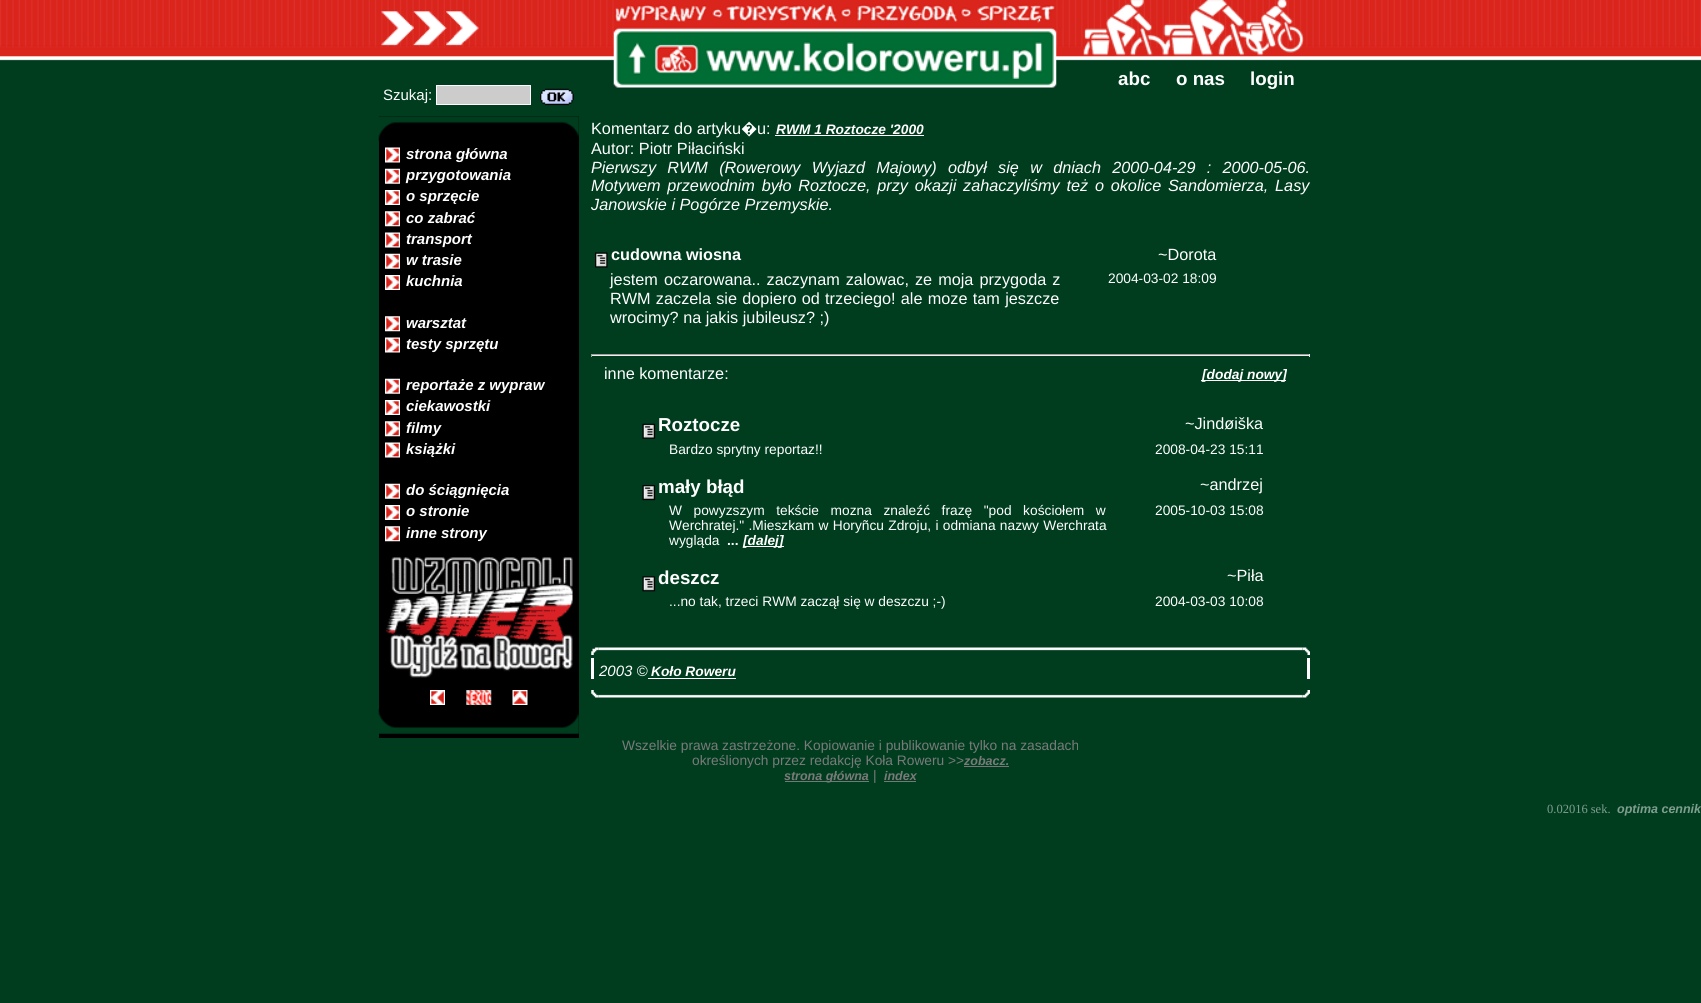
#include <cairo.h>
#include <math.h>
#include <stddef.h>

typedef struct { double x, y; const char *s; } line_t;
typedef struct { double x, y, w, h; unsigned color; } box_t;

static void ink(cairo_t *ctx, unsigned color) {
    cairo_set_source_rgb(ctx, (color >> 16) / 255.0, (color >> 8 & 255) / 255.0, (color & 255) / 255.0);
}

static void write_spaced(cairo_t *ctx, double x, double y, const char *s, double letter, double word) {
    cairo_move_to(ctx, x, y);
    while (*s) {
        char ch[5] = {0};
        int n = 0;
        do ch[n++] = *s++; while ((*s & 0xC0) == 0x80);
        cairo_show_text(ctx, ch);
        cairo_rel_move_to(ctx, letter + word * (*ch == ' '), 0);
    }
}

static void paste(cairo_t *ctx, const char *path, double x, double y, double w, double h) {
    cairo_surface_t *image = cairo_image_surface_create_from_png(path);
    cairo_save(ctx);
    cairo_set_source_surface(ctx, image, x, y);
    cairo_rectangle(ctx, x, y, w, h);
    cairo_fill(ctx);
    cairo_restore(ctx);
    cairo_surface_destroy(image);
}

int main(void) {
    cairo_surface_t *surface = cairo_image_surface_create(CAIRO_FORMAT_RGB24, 1701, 1003);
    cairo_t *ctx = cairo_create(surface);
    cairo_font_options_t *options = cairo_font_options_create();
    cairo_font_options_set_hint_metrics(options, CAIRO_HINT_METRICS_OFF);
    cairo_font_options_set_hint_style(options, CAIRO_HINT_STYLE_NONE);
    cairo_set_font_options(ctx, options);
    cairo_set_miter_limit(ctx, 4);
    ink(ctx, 0x003D1F);
    cairo_paint(ctx);
    paste(ctx, "media/1.png", 0, 0, 1701, 61);
    paste(ctx, "media/2.png", 381, 11, 98, 35);
    paste(ctx, "media/3.png", 613, 0, 444, 88);
    paste(ctx, "media/4.png", 1083, 0, 221, 56);
    cairo_select_font_face(ctx, "Liberation Sans", CAIRO_FONT_SLANT_NORMAL, CAIRO_FONT_WEIGHT_BOLD);
    cairo_set_font_size(ctx, 18.75);
    ink(ctx, 0xFFFFFF);
    {
        static const line_t items[] = {
            {1118, 85, "abc"},
            {1176, 85, "o nas"},
            {1250, 85, "login"},
        };
        for (size_t i = 0; i < sizeof items / sizeof *items; i++) {
            cairo_move_to(ctx, items[i].x, items[i].y);
            cairo_show_text(ctx, items[i].s);
        }
    }
    cairo_select_font_face(ctx, "Liberation Sans", CAIRO_FONT_SLANT_NORMAL, CAIRO_FONT_WEIGHT_NORMAL);
    cairo_set_font_size(ctx, 15);
    cairo_move_to(ctx, 383, 100);
    cairo_show_text(ctx, "Szukaj:");
    ink(ctx, 0xCCCCCC);
    cairo_rectangle(ctx, 436.5, 85.5, 94, 19);
    cairo_fill_preserve(ctx);
    ink(ctx, 0xFFFFFF);
    cairo_set_line_width(ctx, 1);
    cairo_stroke(ctx);
    paste(ctx, "media/5.png", 540, 88, 34, 18);
    ink(ctx, 0x000000);
    cairo_rectangle(ctx, 379, 116, 200, 622);
    cairo_fill(ctx);
    paste(ctx, "media/6.png", 378, 116, 201, 25);
    paste(ctx, "media/7.png", 385, 147, 15, 16);
    cairo_select_font_face(ctx, "Liberation Sans", CAIRO_FONT_SLANT_ITALIC, CAIRO_FONT_WEIGHT_BOLD);
    ink(ctx, 0xFFFFFF);
    cairo_move_to(ctx, 406, 159);
    cairo_show_text(ctx, "strona główna");
    paste(ctx, "media/8.png", 385, 168, 15, 16);
    cairo_move_to(ctx, 406, 180);
    cairo_show_text(ctx, "przygotowania");
    paste(ctx, "media/9.png", 385, 190, 15, 15);
    cairo_move_to(ctx, 406, 201);
    cairo_show_text(ctx, "o sprzęcie");
    paste(ctx, "media/10.png", 385, 211, 15, 16);
    cairo_move_to(ctx, 406, 223);
    cairo_show_text(ctx, "co zabrać");
    paste(ctx, "media/7.png", 385, 232, 15, 16);
    cairo_move_to(ctx, 406, 244);
    cairo_show_text(ctx, "transport");
    paste(ctx, "media/8.png", 385, 253, 15, 16);
    cairo_move_to(ctx, 406, 265);
    cairo_show_text(ctx, "w trasie");
    paste(ctx, "media/9.png", 385, 275, 15, 15);
    cairo_move_to(ctx, 406, 286);
    cairo_show_text(ctx, "kuchnia");
    paste(ctx, "media/10.png", 385, 316, 15, 16);
    cairo_move_to(ctx, 406, 328);
    cairo_show_text(ctx, "warsztat");
    paste(ctx, "media/7.png", 385, 337, 15, 16);
    cairo_move_to(ctx, 406, 349);
    cairo_show_text(ctx, "testy sprzętu");
    paste(ctx, "media/8.png", 385, 378, 15, 16);
    cairo_move_to(ctx, 406, 390);
    cairo_show_text(ctx, "reportaże z wypraw");
    paste(ctx, "media/9.png", 385, 400, 15, 15);
    cairo_move_to(ctx, 406, 411);
    cairo_show_text(ctx, "ciekawostki");
    paste(ctx, "media/10.png", 385, 421, 15, 16);
    cairo_move_to(ctx, 406, 433);
    cairo_show_text(ctx, "filmy");
    paste(ctx, "media/7.png", 385, 442, 15, 16);
    cairo_move_to(ctx, 406, 454);
    cairo_show_text(ctx, "książki");
    paste(ctx, "media/8.png", 385, 483, 15, 16);
    cairo_move_to(ctx, 406, 495);
    cairo_show_text(ctx, "do ściągnięcia");
    paste(ctx, "media/9.png", 385, 505, 15, 15);
    cairo_move_to(ctx, 406, 516);
    cairo_show_text(ctx, "o stronie");
    paste(ctx, "media/10.png", 385, 526, 15, 16);
    cairo_move_to(ctx, 406, 538);
    cairo_show_text(ctx, "inne strony");
    paste(ctx, "media/11.png", 386, 557, 187, 121);
    paste(ctx, "media/12.png", 430, 690, 15, 15);
    paste(ctx, "media/13.png", 466, 690, 26, 15);
    paste(ctx, "media/14.png", 512, 690, 16, 15);
    paste(ctx, "media/15.png", 378, 709, 201, 25);
    cairo_select_font_face(ctx, "Liberation Sans", CAIRO_FONT_SLANT_NORMAL, CAIRO_FONT_WEIGHT_NORMAL);
    cairo_set_font_size(ctx, 16.25);
    cairo_move_to(ctx, 591, 134);
    cairo_show_text(ctx, "Komentarz do artyku");
    cairo_select_font_face(ctx, "Noto Sans", CAIRO_FONT_SLANT_NORMAL, CAIRO_FONT_WEIGHT_NORMAL);
    cairo_move_to(ctx, 741, 134);
    cairo_show_text(ctx, "�");
    cairo_select_font_face(ctx, "Liberation Sans", CAIRO_FONT_SLANT_NORMAL, CAIRO_FONT_WEIGHT_NORMAL);
    cairo_move_to(ctx, 757, 134);
    cairo_show_text(ctx, "u:");
    cairo_select_font_face(ctx, "Liberation Sans", CAIRO_FONT_SLANT_ITALIC, CAIRO_FONT_WEIGHT_BOLD);
    cairo_set_font_size(ctx, 13.75);
    cairo_move_to(ctx, 776, 134);
    cairo_show_text(ctx, "RWM 1 Roztocze '2000");
    cairo_rectangle(ctx, 775, 135, 149, 1);
    cairo_fill(ctx);
    cairo_select_font_face(ctx, "Liberation Sans", CAIRO_FONT_SLANT_NORMAL, CAIRO_FONT_WEIGHT_NORMAL);
    cairo_set_font_size(ctx, 16.25);
    cairo_move_to(ctx, 591, 154);
    cairo_show_text(ctx, "Autor: Piotr Piłaciński");
    cairo_select_font_face(ctx, "Liberation Sans", CAIRO_FONT_SLANT_ITALIC, CAIRO_FONT_WEIGHT_NORMAL);
    write_spaced(ctx, 591, 173, "Pierwszy RWM (Rowerowy Wyjazd Majowy) odbył się w dniach 2000-04-29 : 2000-05-06.", 0, 6.75);
    write_spaced(ctx, 591, 191, "Motywem przewodnim było Roztocze, przy okazji zahaczyliśmy też o okolice Sandomierza, Lasy", 0, 2.25);
    cairo_move_to(ctx, 591, 210);
    cairo_show_text(ctx, "Janowskie i Pogórze Przemyskie.");
    paste(ctx, "media/16.png", 595, 252, 13, 16);
    cairo_select_font_face(ctx, "Liberation Sans", CAIRO_FONT_SLANT_NORMAL, CAIRO_FONT_WEIGHT_BOLD);
    cairo_move_to(ctx, 611, 260);
    cairo_show_text(ctx, "cudowna wiosna");
    cairo_select_font_face(ctx, "Liberation Sans", CAIRO_FONT_SLANT_NORMAL, CAIRO_FONT_WEIGHT_NORMAL);
    cairo_move_to(ctx, 1158, 260);
    cairo_show_text(ctx, "~Dorota");
    write_spaced(ctx, 610, 285, "jestem oczarowana.. zaczynam zalowac, ze moja przygoda z", 0, 1.5);
    write_spaced(ctx, 610, 304, "RWM zaczela sie dopiero od trzeciego! ale moze tam jeszcze", 0, 0.75);
    cairo_move_to(ctx, 610, 323);
    cairo_show_text(ctx, "wrocimy? na jakis jubileusz? ;)");
    cairo_set_font_size(ctx, 13.75);
    cairo_move_to(ctx, 1108, 283);
    cairo_show_text(ctx, "2004-03-02 18:09");
    {
        static const box_t items[] = {
            {591, 354, 719, 1, 0x9F9F9F},
            {1309, 354, 1, 3, 0xEEEEEE},
            {591, 355, 719, 1, 0xEEEEEE},
            {591, 354, 1, 3, 0x9F9F9F},
        };
        for (size_t i = 0; i < sizeof items / sizeof *items; i++) {
            ink(ctx, items[i].color);
            cairo_rectangle(ctx, items[i].x, items[i].y, items[i].w, items[i].h);
            cairo_fill(ctx);
        }
    }
    cairo_set_font_size(ctx, 16.25);
    ink(ctx, 0xFFFFFF);
    cairo_move_to(ctx, 604, 379);
    cairo_show_text(ctx, "inne komentarze:");
    cairo_rectangle(ctx, 1201, 380, 85, 1);
    cairo_fill(ctx);
    cairo_select_font_face(ctx, "Liberation Sans", CAIRO_FONT_SLANT_ITALIC, CAIRO_FONT_WEIGHT_BOLD);
    cairo_set_font_size(ctx, 13.75);
    cairo_move_to(ctx, 1202, 379);
    cairo_show_text(ctx, "[dodaj nowy]");
    paste(ctx, "media/17.png", 642, 423, 14, 16);
    cairo_select_font_face(ctx, "Liberation Sans", CAIRO_FONT_SLANT_NORMAL, CAIRO_FONT_WEIGHT_BOLD);
    cairo_set_font_size(ctx, 18.75);
    cairo_move_to(ctx, 658, 431);
    cairo_show_text(ctx, "Roztocze");
    cairo_select_font_face(ctx, "Liberation Sans", CAIRO_FONT_SLANT_NORMAL, CAIRO_FONT_WEIGHT_NORMAL);
    cairo_set_font_size(ctx, 16.25);
    cairo_move_to(ctx, 1185, 429);
    cairo_show_text(ctx, "~Jindøiška");
    cairo_set_font_size(ctx, 13.75);
    cairo_move_to(ctx, 669, 454);
    cairo_show_text(ctx, "Bardzo sprytny reportaz!!");
    cairo_move_to(ctx, 1155, 454);
    cairo_show_text(ctx, "2008-04-23 15:11");
    paste(ctx, "media/18.png", 642, 485, 14, 16);
    cairo_select_font_face(ctx, "Liberation Sans", CAIRO_FONT_SLANT_NORMAL, CAIRO_FONT_WEIGHT_BOLD);
    cairo_set_font_size(ctx, 18.75);
    cairo_move_to(ctx, 658, 493);
    cairo_show_text(ctx, "mały błąd");
    cairo_select_font_face(ctx, "Liberation Sans", CAIRO_FONT_SLANT_NORMAL, CAIRO_FONT_WEIGHT_NORMAL);
    cairo_set_font_size(ctx, 16.25);
    cairo_move_to(ctx, 1200, 490);
    cairo_show_text(ctx, "~andrzej");
    cairo_set_font_size(ctx, 13.75);
    write_spaced(ctx, 669, 515, "W powyzszym tekście mozna znaleźć frazę \"pod kościołem w", 0, 7.75);
    write_spaced(ctx, 669, 530, "Werchratej.\" .Mieszkam w Horyñcu Zdroju, i odmiana nazwy Werchrata", 0, 0.5);
    cairo_move_to(ctx, 669, 545);
    cairo_show_text(ctx, "wygląda");
    cairo_select_font_face(ctx, "Liberation Sans", CAIRO_FONT_SLANT_NORMAL, CAIRO_FONT_WEIGHT_BOLD);
    cairo_move_to(ctx, 727, 545);
    cairo_show_text(ctx, "...");
    cairo_rectangle(ctx, 743, 546, 41, 1);
    cairo_fill(ctx);
    cairo_select_font_face(ctx, "Liberation Sans", CAIRO_FONT_SLANT_ITALIC, CAIRO_FONT_WEIGHT_BOLD);
    cairo_move_to(ctx, 743, 545);
    cairo_show_text(ctx, "[dalej]");
    cairo_select_font_face(ctx, "Liberation Sans", CAIRO_FONT_SLANT_NORMAL, CAIRO_FONT_WEIGHT_NORMAL);
    cairo_move_to(ctx, 1155, 515);
    cairo_show_text(ctx, "2005-10-03 15:08");
    paste(ctx, "media/19.png", 642, 576, 14, 16);
    cairo_select_font_face(ctx, "Liberation Sans", CAIRO_FONT_SLANT_NORMAL, CAIRO_FONT_WEIGHT_BOLD);
    cairo_set_font_size(ctx, 18.75);
    cairo_move_to(ctx, 658, 584);
    cairo_show_text(ctx, "deszcz");
    cairo_select_font_face(ctx, "Liberation Sans", CAIRO_FONT_SLANT_NORMAL, CAIRO_FONT_WEIGHT_NORMAL);
    cairo_set_font_size(ctx, 16.25);
    cairo_move_to(ctx, 1227, 581);
    cairo_show_text(ctx, "~Piła");
    cairo_set_font_size(ctx, 13.75);
    cairo_move_to(ctx, 669, 606);
    cairo_show_text(ctx, "...no tak, trzeci RWM zaczął się w deszczu ;-)");
    cairo_move_to(ctx, 1155, 606);
    cairo_show_text(ctx, "2004-03-03 10:08");
    paste(ctx, "media/20.png", 591, 647, 8, 8);
    paste(ctx, "media/21.png", 598, 647, 705, 4);
    paste(ctx, "media/22.png", 1302, 647, 8, 8);
    cairo_rectangle(ctx, 591, 658, 3, 21);
    cairo_fill(ctx);
    cairo_select_font_face(ctx, "Liberation Sans", CAIRO_FONT_SLANT_ITALIC, CAIRO_FONT_WEIGHT_NORMAL);
    cairo_set_font_size(ctx, 15);
    cairo_move_to(ctx, 599, 676);
    cairo_show_text(ctx, "2003 ©");
    cairo_select_font_face(ctx, "Liberation Sans", CAIRO_FONT_SLANT_ITALIC, CAIRO_FONT_WEIGHT_BOLD);
    cairo_set_font_size(ctx, 13.75);
    cairo_move_to(ctx, 651, 676);
    cairo_show_text(ctx, "Koło Roweru");
    cairo_rectangle(ctx, 648, 678, 88, 1);
    cairo_fill(ctx);
    cairo_rectangle(ctx, 1307, 658, 3, 21);
    cairo_fill(ctx);
    paste(ctx, "media/23.png", 591, 690, 8, 8);
    paste(ctx, "media/24.png", 598, 694, 705, 4);
    paste(ctx, "media/25.png", 1302, 690, 8, 8);
    cairo_select_font_face(ctx, "Liberation Sans", CAIRO_FONT_SLANT_NORMAL, CAIRO_FONT_WEIGHT_NORMAL);
    ink(ctx, 0x7A7A7A);
    cairo_move_to(ctx, 622, 750);
    cairo_show_text(ctx, "Wszelkie prawa zastrzeżone. Kopiowanie i publikowanie tylko na zasadach");
    cairo_move_to(ctx, 692, 765);
    cairo_show_text(ctx, "określionych przez redakcję Koła Roweru >>");
    cairo_select_font_face(ctx, "Liberation Sans", CAIRO_FONT_SLANT_ITALIC, CAIRO_FONT_WEIGHT_BOLD);
    cairo_set_font_size(ctx, 12.5);
    cairo_move_to(ctx, 964, 765);
    cairo_show_text(ctx, "zobacz.");
    ink(ctx, 0x777777);
    cairo_rectangle(ctx, 964, 766, 45, 1);
    cairo_fill(ctx);
    cairo_rectangle(ctx, 785, 781, 84, 1);
    cairo_fill(ctx);
    ink(ctx, 0x7A7A7A);
    cairo_move_to(ctx, 784, 780);
    cairo_show_text(ctx, "strona główna");
    cairo_select_font_face(ctx, "Liberation Sans", CAIRO_FONT_SLANT_NORMAL, CAIRO_FONT_WEIGHT_NORMAL);
    cairo_set_font_size(ctx, 13.75);
    cairo_move_to(ctx, 873, 780);
    cairo_show_text(ctx, "|");
    cairo_select_font_face(ctx, "Liberation Sans", CAIRO_FONT_SLANT_ITALIC, CAIRO_FONT_WEIGHT_BOLD);
    cairo_set_font_size(ctx, 12.5);
    cairo_move_to(ctx, 884, 780);
    cairo_show_text(ctx, "index");
    ink(ctx, 0x777777);
    cairo_rectangle(ctx, 884, 781, 32, 1);
    cairo_fill(ctx);
    cairo_select_font_face(ctx, "Liberation Serif", CAIRO_FONT_SLANT_NORMAL, CAIRO_FONT_WEIGHT_NORMAL);
    ink(ctx, 0x809E8F);
    cairo_move_to(ctx, 1547, 813);
    cairo_show_text(ctx, "0.02016 sek.");
    cairo_select_font_face(ctx, "Liberation Sans", CAIRO_FONT_SLANT_ITALIC, CAIRO_FONT_WEIGHT_BOLD);
    cairo_move_to(ctx, 1617, 813);
    cairo_show_text(ctx, "optima cennik");
    cairo_surface_write_to_png(surface, "image.png");
    cairo_font_options_destroy(options);
    cairo_destroy(ctx);
    cairo_surface_destroy(surface);
    return 0;
}
